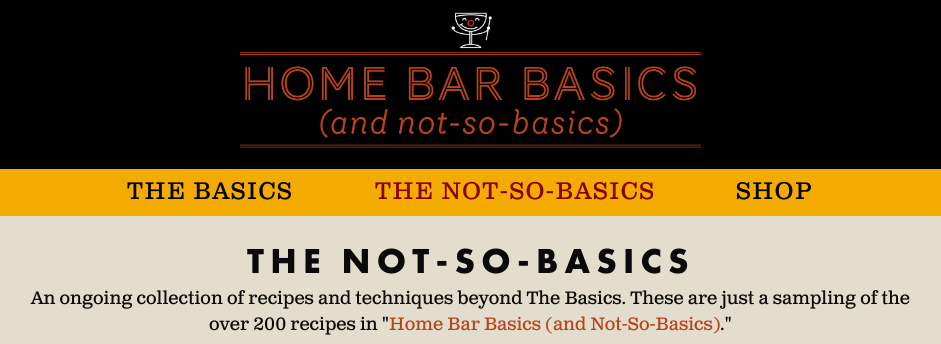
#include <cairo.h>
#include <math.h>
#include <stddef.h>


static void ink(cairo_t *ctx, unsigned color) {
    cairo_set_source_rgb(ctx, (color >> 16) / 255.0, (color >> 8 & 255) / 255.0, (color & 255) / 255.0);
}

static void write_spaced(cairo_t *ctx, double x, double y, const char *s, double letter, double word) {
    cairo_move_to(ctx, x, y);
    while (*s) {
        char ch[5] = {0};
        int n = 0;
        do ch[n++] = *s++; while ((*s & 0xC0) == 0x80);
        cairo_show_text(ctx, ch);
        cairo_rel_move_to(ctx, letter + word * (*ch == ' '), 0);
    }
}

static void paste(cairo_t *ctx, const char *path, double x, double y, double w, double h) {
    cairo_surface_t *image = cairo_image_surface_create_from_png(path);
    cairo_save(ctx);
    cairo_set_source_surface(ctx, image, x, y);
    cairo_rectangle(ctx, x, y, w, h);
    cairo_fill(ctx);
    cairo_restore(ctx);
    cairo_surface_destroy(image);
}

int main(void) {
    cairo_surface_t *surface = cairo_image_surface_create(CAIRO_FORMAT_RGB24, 941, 344);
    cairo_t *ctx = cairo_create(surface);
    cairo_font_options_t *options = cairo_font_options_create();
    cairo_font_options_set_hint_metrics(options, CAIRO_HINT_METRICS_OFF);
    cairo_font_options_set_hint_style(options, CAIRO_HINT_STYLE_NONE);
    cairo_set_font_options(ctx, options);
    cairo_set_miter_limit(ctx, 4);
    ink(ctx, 0xE2DDCC);
    cairo_paint(ctx);
    ink(ctx, 0x000000);
    cairo_rectangle(ctx, 0, 0, 941, 169);
    cairo_fill(ctx);
    paste(ctx, "media/1.png", 240, 12, 461, 136);
    ink(ctx, 0xF4AB00);
    cairo_rectangle(ctx, 0, 169, 941, 47);
    cairo_fill(ctx);
    cairo_select_font_face(ctx, "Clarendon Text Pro", CAIRO_FONT_SLANT_NORMAL, CAIRO_FONT_WEIGHT_NORMAL);
    cairo_set_font_size(ctx, 24);
    ink(ctx, 0x000000);
    write_spaced(ctx, 127, 199, "THE BASICS", 1.6, 0);
    ink(ctx, 0x870000);
    write_spaced(ctx, 375, 199, "THE NOT-SO-BASICS", 1.6, 0);
    ink(ctx, 0x000000);
    write_spaced(ctx, 736, 199, "SHOP", 1.6, 0);
    cairo_select_font_face(ctx, "Futura PT", CAIRO_FONT_SLANT_NORMAL, CAIRO_FONT_WEIGHT_BOLD);
    cairo_set_font_size(ctx, 36);
    ink(ctx, 0x0A0A0A);
    write_spaced(ctx, 247, 273, "THE NOT-SO-BASICS", 6.25, 0);
    cairo_select_font_face(ctx, "Clarendon Text Pro", CAIRO_FONT_SLANT_NORMAL, CAIRO_FONT_WEIGHT_NORMAL);
    cairo_set_font_size(ctx, 18);
    cairo_move_to(ctx, 31, 304);
    cairo_show_text(ctx, "An ongoing collection of recipes and techniques beyond The Basics. These are just a sampling of the");
    cairo_move_to(ctx, 209, 330);
    cairo_show_text(ctx, "over 200 recipes in \"");
    ink(ctx, 0xB9441C);
    cairo_move_to(ctx, 389, 330);
    cairo_show_text(ctx, "Home Bar Basics (and Not-So-Basics)");
    ink(ctx, 0x0A0A0A);
    cairo_move_to(ctx, 720, 330);
    cairo_show_text(ctx, ".\"");
    cairo_surface_write_to_png(surface, "image.png");
    cairo_font_options_destroy(options);
    cairo_destroy(ctx);
    cairo_surface_destroy(surface);
    return 0;
}
